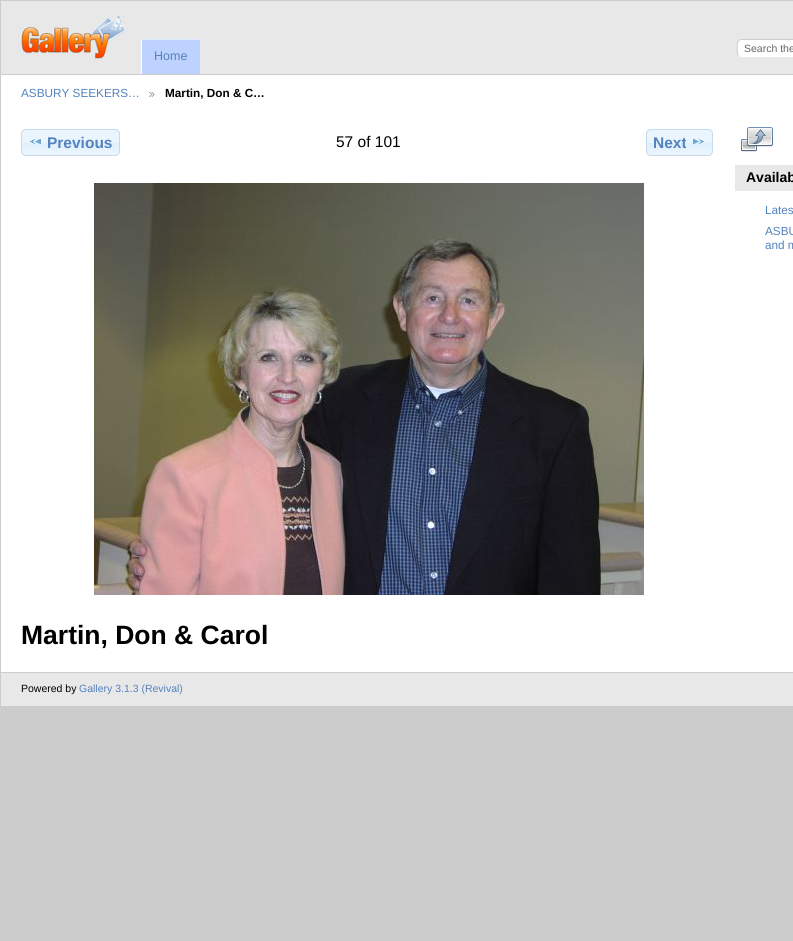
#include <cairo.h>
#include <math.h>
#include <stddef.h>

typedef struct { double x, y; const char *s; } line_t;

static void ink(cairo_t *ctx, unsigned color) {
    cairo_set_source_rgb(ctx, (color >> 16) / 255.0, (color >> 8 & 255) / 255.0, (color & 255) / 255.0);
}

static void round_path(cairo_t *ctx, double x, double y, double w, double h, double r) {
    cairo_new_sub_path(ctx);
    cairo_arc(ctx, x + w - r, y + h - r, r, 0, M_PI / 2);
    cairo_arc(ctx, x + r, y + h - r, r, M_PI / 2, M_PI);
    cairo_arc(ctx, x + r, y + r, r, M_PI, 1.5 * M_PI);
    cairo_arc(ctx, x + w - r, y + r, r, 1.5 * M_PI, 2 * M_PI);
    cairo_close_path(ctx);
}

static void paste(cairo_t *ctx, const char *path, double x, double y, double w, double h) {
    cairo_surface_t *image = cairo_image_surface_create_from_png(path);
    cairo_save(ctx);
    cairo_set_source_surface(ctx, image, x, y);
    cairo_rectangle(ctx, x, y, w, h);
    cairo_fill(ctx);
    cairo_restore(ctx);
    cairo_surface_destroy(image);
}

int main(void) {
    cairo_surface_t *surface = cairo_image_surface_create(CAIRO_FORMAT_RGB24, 793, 941);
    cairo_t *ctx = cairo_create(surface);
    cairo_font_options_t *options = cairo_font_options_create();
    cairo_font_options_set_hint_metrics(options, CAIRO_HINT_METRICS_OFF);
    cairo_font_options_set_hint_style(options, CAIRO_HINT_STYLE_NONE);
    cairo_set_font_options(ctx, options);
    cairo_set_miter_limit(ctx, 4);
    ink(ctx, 0xCCCCCC);
    cairo_paint(ctx);
    ink(ctx, 0xFFFFFF);
    cairo_rectangle(ctx, 1, 75, 792, 597);
    cairo_fill(ctx);
    ink(ctx, 0xE8E8E8);
    cairo_rectangle(ctx, 1, 1, 792, 73);
    cairo_fill(ctx);
    paste(ctx, "media/1.png", 21, 15, 106, 44);
    ink(ctx, 0xFFFFFF);
    cairo_new_path(ctx);
    cairo_move_to(ctx, 742, 39);
    cairo_line_to(ctx, 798, 39);
    cairo_line_to(ctx, 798, 58);
    cairo_line_to(ctx, 742, 58);
    cairo_curve_to(ctx, 739, 58, 737, 56, 737, 53);
    cairo_line_to(ctx, 737, 44);
    cairo_curve_to(ctx, 737, 41, 739, 39, 742, 39);
    cairo_close_path(ctx);
    cairo_fill(ctx);
    ink(ctx, 0xCCCCCC);
    cairo_new_path(ctx);
    cairo_move_to(ctx, 742, 39);
    cairo_curve_to(ctx, 740, 39, 739, 40, 738, 40);
    cairo_line_to(ctx, 739, 41);
    cairo_curve_to(ctx, 740, 40, 741, 40, 742, 40);
    cairo_line_to(ctx, 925, 40);
    cairo_line_to(ctx, 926, 39);
    cairo_close_path(ctx);
    cairo_fill(ctx);
    ink(ctx, 0xE8E8E8);
    cairo_new_path(ctx);
    cairo_move_to(ctx, 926, 58);
    cairo_line_to(ctx, 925, 57);
    cairo_line_to(ctx, 741, 57);
    cairo_line_to(ctx, 739, 56);
    cairo_line_to(ctx, 738, 57);
    cairo_curve_to(ctx, 739, 58, 740, 58, 742, 58);
    cairo_close_path(ctx);
    cairo_fill(ctx);
    ink(ctx, 0xCCCCCC);
    cairo_new_path(ctx);
    cairo_move_to(ctx, 737, 44);
    cairo_curve_to(ctx, 737, 47, 736, 54.5, 738.5, 56.5);
    cairo_line_to(ctx, 739, 56);
    cairo_curve_to(ctx, 737.5, 53.5, 737.5, 46, 738, 43.5);
    cairo_line_to(ctx, 739, 41);
    cairo_line_to(ctx, 738.5, 40.5);
    cairo_curve_to(ctx, 737.5, 41, 737, 42.5, 737, 44);
    cairo_close_path(ctx);
    cairo_fill(ctx);
    cairo_select_font_face(ctx, "Liberation Sans", CAIRO_FONT_SLANT_NORMAL, CAIRO_FONT_WEIGHT_NORMAL);
    cairo_set_font_size(ctx, 10.5);
    ink(ctx, 0x666666);
    cairo_move_to(ctx, 744, 52);
    cairo_show_text(ctx, "Search the");
    ink(ctx, 0xBDD2FF);
    cairo_rectangle(ctx, 141, 39, 59, 35);
    cairo_fill(ctx);
    ink(ctx, 0xDEE9FF);
    cairo_new_path(ctx);
    cairo_move_to(ctx, 141, 39);
    cairo_line_to(ctx, 200, 39);
    cairo_line_to(ctx, 200, 40);
    cairo_line_to(ctx, 142, 40);
    cairo_close_path(ctx);
    cairo_fill(ctx);
    ink(ctx, 0xFFFFFF);
    cairo_new_path(ctx);
    cairo_move_to(ctx, 141, 74);
    cairo_line_to(ctx, 141, 39);
    cairo_line_to(ctx, 142, 40);
    cairo_line_to(ctx, 142, 74);
    cairo_close_path(ctx);
    cairo_fill(ctx);
    cairo_set_font_size(ctx, 12.5);
    ink(ctx, 0x5382BF);
    cairo_move_to(ctx, 154, 60);
    cairo_show_text(ctx, "Home");
    cairo_set_font_size(ctx, 11.75);
    cairo_move_to(ctx, 21, 97);
    cairo_show_text(ctx, "ASBURY SEEKERS…");
    paste(ctx, "media/2.png", 149, 92, 6, 5);
    cairo_select_font_face(ctx, "Liberation Sans", CAIRO_FONT_SLANT_NORMAL, CAIRO_FONT_WEIGHT_BOLD);
    ink(ctx, 0x000000);
    cairo_move_to(ctx, 165, 97);
    cairo_show_text(ctx, "Martin, Don & C…");
    paste(ctx, "media/3.png", 21, 129, 99, 27);
    round_path(ctx, 21.5, 129.5, 98, 26, 4.5);
    ink(ctx, 0xC5DBEC);
    cairo_set_line_width(ctx, 1);
    cairo_stroke(ctx);
    paste(ctx, "media/4.png", 30, 139, 11, 5);
    cairo_set_font_size(ctx, 15.5);
    ink(ctx, 0x5382BF);
    cairo_move_to(ctx, 47, 148);
    cairo_show_text(ctx, "Previous");
    cairo_select_font_face(ctx, "Liberation Sans", CAIRO_FONT_SLANT_NORMAL, CAIRO_FONT_WEIGHT_NORMAL);
    ink(ctx, 0x000000);
    cairo_move_to(ctx, 336, 147);
    cairo_show_text(ctx, "57 of 101");
    paste(ctx, "media/5.png", 646, 129, 67, 27);
    round_path(ctx, 646.5, 129.5, 66, 26, 4.5);
    ink(ctx, 0xC5DBEC);
    cairo_stroke(ctx);
    cairo_select_font_face(ctx, "Liberation Sans", CAIRO_FONT_SLANT_NORMAL, CAIRO_FONT_WEIGHT_BOLD);
    ink(ctx, 0x5382BF);
    cairo_move_to(ctx, 653, 148);
    cairo_show_text(ctx, "Next");
    paste(ctx, "media/6.png", 693, 139, 11, 5);
    paste(ctx, "media/7.png", 94, 183, 550, 412);
    cairo_set_font_size(ctx, 26.5);
    ink(ctx, 0x000000);
    cairo_move_to(ctx, 21, 644);
    cairo_show_text(ctx, "Martin, Don & Carol");
    paste(ctx, "media/8.png", 741, 127, 32, 25);
    ink(ctx, 0xE8E8E8);
    cairo_rectangle(ctx, 735, 165, 58, 26);
    cairo_fill(ctx);
    cairo_set_font_size(ctx, 14);
    ink(ctx, 0x000000);
    cairo_move_to(ctx, 746, 182);
    cairo_show_text(ctx, "Availab");
    cairo_select_font_face(ctx, "Liberation Sans", CAIRO_FONT_SLANT_NORMAL, CAIRO_FONT_WEIGHT_NORMAL);
    cairo_set_font_size(ctx, 11.75);
    ink(ctx, 0x5382BF);
    {
        static const line_t items[] = {
            {765, 214, "Lates"},
            {765, 235, "ASBU"},
            {765, 249, "and m"},
        };
        for (size_t i = 0; i < sizeof items / sizeof *items; i++) {
            cairo_move_to(ctx, items[i].x, items[i].y);
            cairo_show_text(ctx, items[i].s);
        }
    }
    ink(ctx, 0xE8E8E8);
    cairo_rectangle(ctx, 1, 673, 792, 33);
    cairo_fill(ctx);
    cairo_set_font_size(ctx, 10.5);
    ink(ctx, 0x000000);
    cairo_move_to(ctx, 21, 692);
    cairo_show_text(ctx, "Powered by");
    ink(ctx, 0x5382BF);
    cairo_move_to(ctx, 79, 692);
    cairo_show_text(ctx, "Gallery 3.1.3 (Revival)");
    cairo_surface_write_to_png(surface, "image.png");
    cairo_font_options_destroy(options);
    cairo_destroy(ctx);
    cairo_surface_destroy(surface);
    return 0;
}
